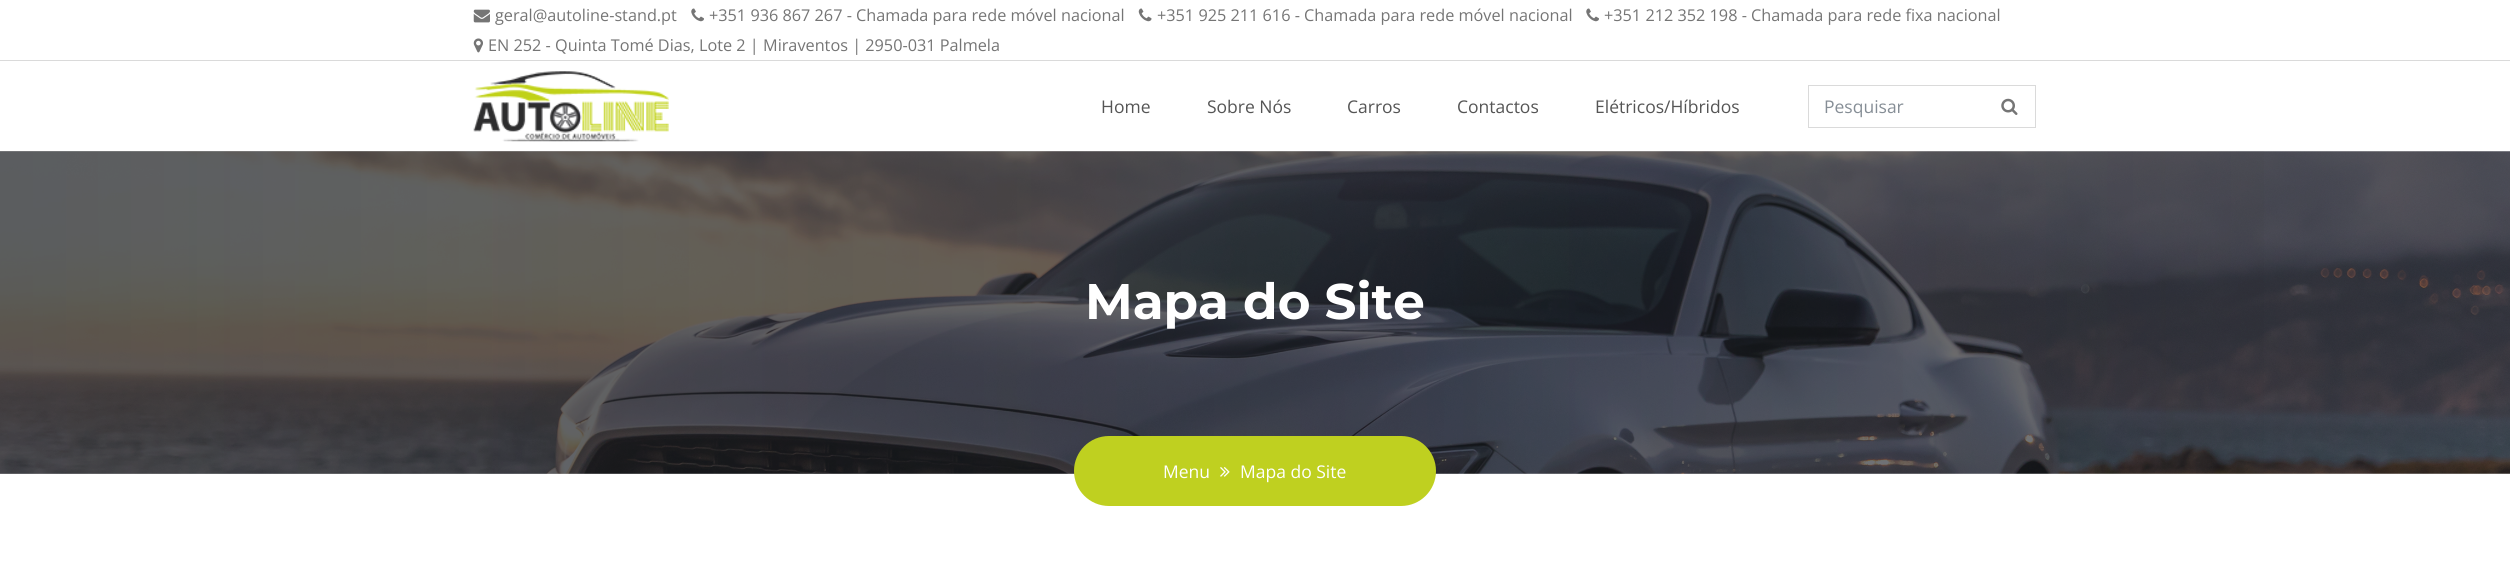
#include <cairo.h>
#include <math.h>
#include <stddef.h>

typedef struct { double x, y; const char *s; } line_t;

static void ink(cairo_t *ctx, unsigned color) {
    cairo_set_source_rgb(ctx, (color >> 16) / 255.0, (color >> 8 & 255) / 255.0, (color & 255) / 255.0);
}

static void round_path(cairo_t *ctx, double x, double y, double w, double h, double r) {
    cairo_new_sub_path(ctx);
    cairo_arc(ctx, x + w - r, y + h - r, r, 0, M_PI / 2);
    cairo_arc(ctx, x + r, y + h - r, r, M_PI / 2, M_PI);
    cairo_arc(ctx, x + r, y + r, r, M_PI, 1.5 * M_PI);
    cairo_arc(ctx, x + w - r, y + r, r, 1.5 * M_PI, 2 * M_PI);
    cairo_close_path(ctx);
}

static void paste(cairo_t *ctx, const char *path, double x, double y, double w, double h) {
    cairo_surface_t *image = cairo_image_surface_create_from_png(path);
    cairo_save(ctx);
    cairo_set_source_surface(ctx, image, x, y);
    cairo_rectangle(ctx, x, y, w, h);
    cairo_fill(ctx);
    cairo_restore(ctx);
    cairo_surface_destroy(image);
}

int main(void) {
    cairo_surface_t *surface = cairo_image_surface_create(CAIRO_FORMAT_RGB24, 2510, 577);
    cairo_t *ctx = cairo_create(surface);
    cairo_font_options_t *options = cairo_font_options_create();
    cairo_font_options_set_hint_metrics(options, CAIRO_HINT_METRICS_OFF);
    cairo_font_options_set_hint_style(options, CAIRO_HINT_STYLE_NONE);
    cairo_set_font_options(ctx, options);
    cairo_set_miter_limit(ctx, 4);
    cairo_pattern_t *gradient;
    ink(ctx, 0xFFFFFF);
    cairo_paint(ctx);
    ink(ctx, 0xDADADA);
    cairo_rectangle(ctx, 0, 60, 2510, 1);
    cairo_fill(ctx);
    paste(ctx, "media/1.png", 473, 9, 17, 14);
    cairo_select_font_face(ctx, "Open Sans", CAIRO_FONT_SLANT_NORMAL, CAIRO_FONT_WEIGHT_NORMAL);
    cairo_set_font_size(ctx, 16.25);
    ink(ctx, 0x757575);
    cairo_move_to(ctx, 495, 21);
    cairo_show_text(ctx, "geral@autoline-stand.pt");
    paste(ctx, "media/2.png", 691, 8, 13, 14);
    cairo_move_to(ctx, 709, 21);
    cairo_show_text(ctx, "+351 936 867 267 - Chamada para rede móvel nacional");
    paste(ctx, "media/3.png", 1138, 8, 14, 14);
    cairo_move_to(ctx, 1157, 21);
    cairo_show_text(ctx, "+351 925 211 616 - Chamada para rede móvel nacional");
    paste(ctx, "media/2.png", 1586, 8, 13, 14);
    cairo_move_to(ctx, 1604, 21);
    cairo_show_text(ctx, "+351 212 352 198 - Chamada para rede fixa nacional");
    paste(ctx, "media/4.png", 473, 38, 10, 15);
    cairo_move_to(ctx, 488, 51);
    cairo_show_text(ctx, "EN 252 - Quinta Tomé Dias, Lote 2 | Miraventos | 2950-031 Palmela");
    paste(ctx, "media/5.png", 473, 71, 196, 71);
    cairo_set_font_size(ctx, 17.5);
    ink(ctx, 0x555555);
    {
        static const line_t items[] = {
            {1101, 113, "Home"},
            {1207, 113, "Sobre Nós"},
            {1347, 113, "Carros"},
            {1457, 113, "Contactos"},
            {1595, 113, "Elétricos/Híbridos"},
        };
        for (size_t i = 0; i < sizeof items / sizeof *items; i++) {
            cairo_move_to(ctx, items[i].x, items[i].y);
            cairo_show_text(ctx, items[i].s);
        }
    }
    cairo_rectangle(ctx, 1808.5, 85.5, 227, 42);
    ink(ctx, 0xDADADA);
    cairo_set_line_width(ctx, 1);
    cairo_stroke(ctx);
    ink(ctx, 0x868E96);
    cairo_move_to(ctx, 1824, 113);
    cairo_show_text(ctx, "Pesquisar");
    paste(ctx, "media/6.png", 2001, 98, 17, 17);
    paste(ctx, "media/7.png", 0, 151, 2510, 323);
    gradient = cairo_pattern_create_linear(0, 313, 2510, 312);
    cairo_pattern_add_color_stop_rgba(gradient, 0, 0.106, 0.122, 0.141, 0.3);
    cairo_pattern_add_color_stop_rgba(gradient, 1, 0.106, 0.122, 0.141, 0);
    cairo_set_source(ctx, gradient);
    cairo_pattern_destroy(gradient);
    cairo_rectangle(ctx, 0, 151, 2264, 323);
    cairo_fill(ctx);
    cairo_select_font_face(ctx, "Montserrat", CAIRO_FONT_SLANT_NORMAL, CAIRO_FONT_WEIGHT_BOLD);
    cairo_set_font_size(ctx, 50);
    ink(ctx, 0xFFFFFF);
    cairo_move_to(ctx, 1085, 319);
    cairo_show_text(ctx, "Mapa do Site");
    ink(ctx, 0xBFD020);
    round_path(ctx, 1074, 436, 362, 70, 35);
    cairo_fill(ctx);
    cairo_select_font_face(ctx, "Open Sans", CAIRO_FONT_SLANT_NORMAL, CAIRO_FONT_WEIGHT_NORMAL);
    cairo_set_font_size(ctx, 17.5);
    ink(ctx, 0xFFFFFF);
    cairo_move_to(ctx, 1163, 478);
    cairo_show_text(ctx, "Menu");
    paste(ctx, "media/8.png", 1220, 467, 10, 10);
    cairo_move_to(ctx, 1240, 478);
    cairo_show_text(ctx, "Mapa do Site");
    cairo_surface_write_to_png(surface, "image.png");
    cairo_font_options_destroy(options);
    cairo_destroy(ctx);
    cairo_surface_destroy(surface);
    return 0;
}
